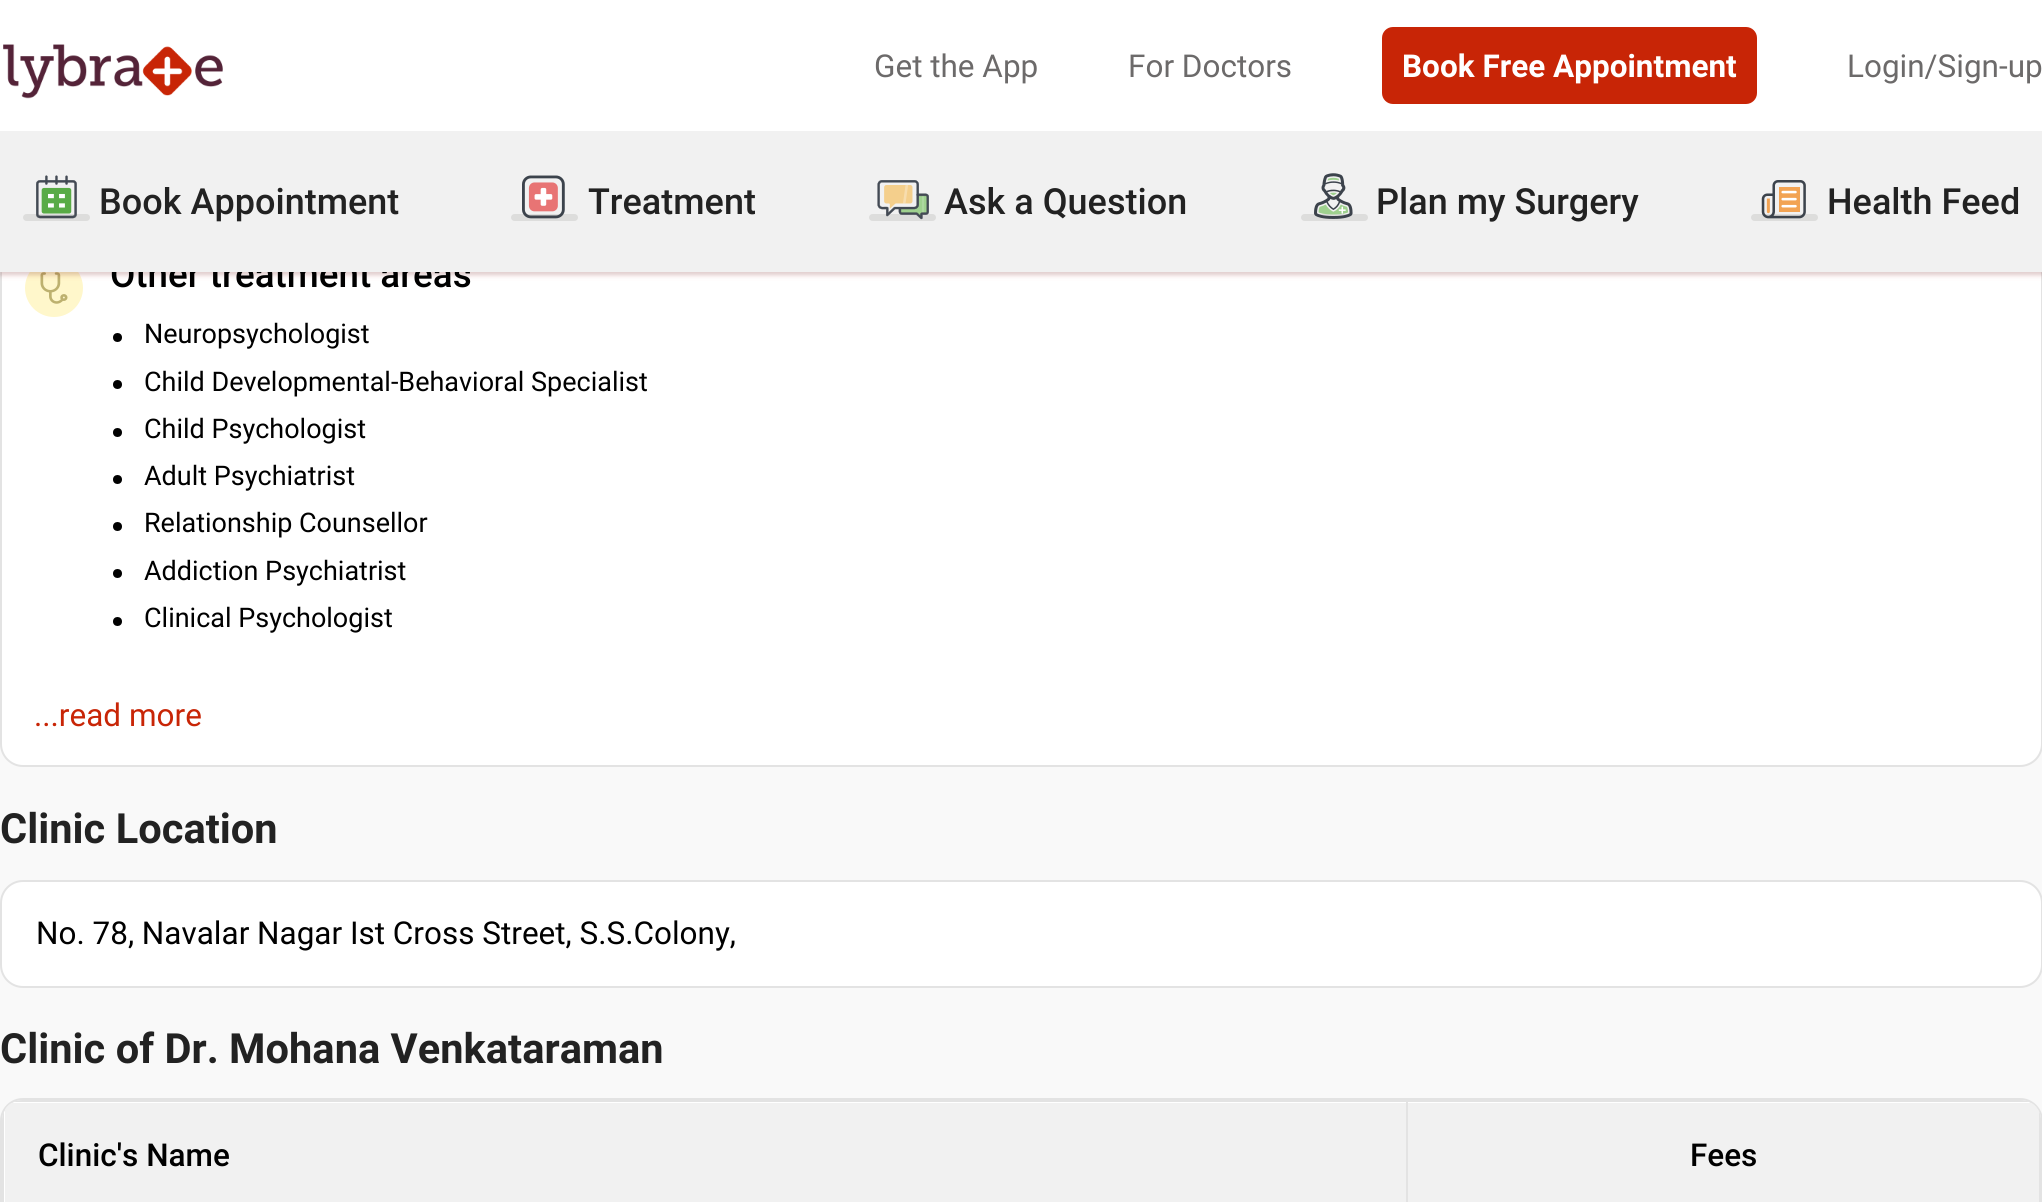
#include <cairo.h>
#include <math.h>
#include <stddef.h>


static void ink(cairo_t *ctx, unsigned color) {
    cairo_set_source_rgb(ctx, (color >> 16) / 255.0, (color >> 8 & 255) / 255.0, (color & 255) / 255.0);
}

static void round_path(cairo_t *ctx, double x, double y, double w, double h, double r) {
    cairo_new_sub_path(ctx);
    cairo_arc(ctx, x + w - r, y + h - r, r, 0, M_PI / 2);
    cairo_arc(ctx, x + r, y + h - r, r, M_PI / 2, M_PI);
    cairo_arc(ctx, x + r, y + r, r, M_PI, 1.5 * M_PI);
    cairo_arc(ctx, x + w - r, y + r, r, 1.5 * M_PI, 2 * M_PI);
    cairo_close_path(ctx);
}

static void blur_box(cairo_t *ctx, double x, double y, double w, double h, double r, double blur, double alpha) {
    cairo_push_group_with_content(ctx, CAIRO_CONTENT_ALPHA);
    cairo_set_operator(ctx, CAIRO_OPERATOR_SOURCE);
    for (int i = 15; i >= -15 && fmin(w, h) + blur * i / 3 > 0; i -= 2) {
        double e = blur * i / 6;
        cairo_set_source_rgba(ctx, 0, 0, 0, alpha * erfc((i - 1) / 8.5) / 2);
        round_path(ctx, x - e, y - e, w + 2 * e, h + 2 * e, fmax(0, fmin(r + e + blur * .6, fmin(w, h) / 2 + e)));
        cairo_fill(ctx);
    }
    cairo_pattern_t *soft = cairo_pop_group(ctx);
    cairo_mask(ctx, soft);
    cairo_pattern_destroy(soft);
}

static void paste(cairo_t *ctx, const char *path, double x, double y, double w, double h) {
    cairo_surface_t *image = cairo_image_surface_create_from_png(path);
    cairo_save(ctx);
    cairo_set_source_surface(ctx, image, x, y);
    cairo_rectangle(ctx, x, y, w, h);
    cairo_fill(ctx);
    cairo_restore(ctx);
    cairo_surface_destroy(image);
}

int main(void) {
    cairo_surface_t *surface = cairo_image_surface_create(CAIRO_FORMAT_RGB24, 2042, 1202);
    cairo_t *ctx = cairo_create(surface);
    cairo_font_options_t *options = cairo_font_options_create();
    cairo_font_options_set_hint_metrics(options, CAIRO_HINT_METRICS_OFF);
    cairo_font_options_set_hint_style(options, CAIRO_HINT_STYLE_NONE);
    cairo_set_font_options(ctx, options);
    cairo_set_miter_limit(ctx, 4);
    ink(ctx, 0xF9F9F9);
    cairo_paint(ctx);
    ink(ctx, 0xFFFFFF);
    round_path(ctx, 1, 84, 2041, 682, 22);
    cairo_fill_preserve(ctx);
    ink(ctx, 0xE3E3E3);
    cairo_stroke(ctx);
    paste(ctx, "media/7.png", 25, 272, 58, 45);
    ink(ctx, 0x000000);
    blur_box(ctx, 0, 133, 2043, 142, 0, 2, 0.12);
    ink(ctx, 0xDD0909);
    blur_box(ctx, 0, 133, 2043, 142, 0, 3.5, 0.12);
    ink(ctx, 0xFFFFFF);
    cairo_rectangle(ctx, 0, 0, 2042, 131);
    cairo_fill(ctx);
    paste(ctx, "media/1.png", 3, 44, 220, 55);
    cairo_select_font_face(ctx, "Roboto", CAIRO_FONT_SLANT_NORMAL, CAIRO_FONT_WEIGHT_NORMAL);
    cairo_set_font_size(ctx, 31.5);
    ink(ctx, 0x6C6A6A);
    cairo_move_to(ctx, 874, 77);
    cairo_show_text(ctx, "Get the App");
    cairo_move_to(ctx, 1128, 77);
    cairo_show_text(ctx, "For Doctors");
    ink(ctx, 0xC82506);
    round_path(ctx, 1383, 28, 373, 75, 10);
    cairo_fill_preserve(ctx);
    cairo_stroke(ctx);
    cairo_select_font_face(ctx, "Roboto", CAIRO_FONT_SLANT_NORMAL, CAIRO_FONT_WEIGHT_BOLD);
    ink(ctx, 0xFFFFFF);
    cairo_move_to(ctx, 1402, 77);
    cairo_show_text(ctx, "Book Free Appointment");
    cairo_select_font_face(ctx, "Roboto", CAIRO_FONT_SLANT_NORMAL, CAIRO_FONT_WEIGHT_NORMAL);
    ink(ctx, 0x6C6A6A);
    cairo_move_to(ctx, 1847, 77);
    cairo_show_text(ctx, "Login/Sign-up");
    cairo_select_font_face(ctx, "Roboto Medium", CAIRO_FONT_SLANT_NORMAL, CAIRO_FONT_WEIGHT_NORMAL);
    cairo_set_font_size(ctx, 36.75);
    ink(ctx, 0x000000);
    cairo_move_to(ctx, 110, 287);
    cairo_show_text(ctx, "Other treatment areas");
    ink(ctx, 0xF1F1F1);
    cairo_rectangle(ctx, 0, 131, 2042, 141);
    cairo_fill(ctx);
    paste(ctx, "media/2.png", 23, 175, 67, 46);
    cairo_set_font_size(ctx, 36);
    ink(ctx, 0x222222);
    cairo_move_to(ctx, 99, 214);
    cairo_show_text(ctx, "Book Appointment");
    paste(ctx, "media/3.png", 511, 175, 67, 46);
    cairo_move_to(ctx, 588, 214);
    cairo_show_text(ctx, "Treatment");
    paste(ctx, "media/4.png", 869, 180, 67, 41);
    cairo_move_to(ctx, 944, 214);
    cairo_show_text(ctx, "Ask a Question");
    paste(ctx, "media/5.png", 1301, 173, 67, 48);
    cairo_move_to(ctx, 1376, 214);
    cairo_show_text(ctx, "Plan my Surgery");
    paste(ctx, "media/6.png", 1751, 180, 67, 41);
    cairo_move_to(ctx, 1827, 214);
    cairo_show_text(ctx, "Health Feed");
    ink(ctx, 0x000000);
    cairo_new_path(ctx);
    cairo_arc(ctx, 117.5, 337.5, 4.5, 0, 2 * M_PI);
    cairo_fill(ctx);
    cairo_select_font_face(ctx, "Roboto", CAIRO_FONT_SLANT_NORMAL, CAIRO_FONT_WEIGHT_NORMAL);
    cairo_set_font_size(ctx, 27);
    cairo_move_to(ctx, 144, 343);
    cairo_show_text(ctx, "Neuropsychologist");
    cairo_new_path(ctx);
    cairo_arc(ctx, 117.5, 384.5, 4.5, 0, 2 * M_PI);
    cairo_fill(ctx);
    cairo_move_to(ctx, 144, 391);
    cairo_show_text(ctx, "Child Developmental-Behavioral Specialist");
    cairo_new_path(ctx);
    cairo_arc(ctx, 117.5, 432.5, 4.5, 0, 2 * M_PI);
    cairo_fill(ctx);
    cairo_move_to(ctx, 144, 438);
    cairo_show_text(ctx, "Child Psychologist");
    cairo_new_path(ctx);
    cairo_arc(ctx, 117.5, 479.5, 4.5, 0, 2 * M_PI);
    cairo_fill(ctx);
    cairo_move_to(ctx, 144, 485);
    cairo_show_text(ctx, "Adult Psychiatrist");
    cairo_new_path(ctx);
    cairo_arc(ctx, 117.5, 526.5, 4.5, 0, 2 * M_PI);
    cairo_fill(ctx);
    cairo_move_to(ctx, 144, 532);
    cairo_show_text(ctx, "Relationship Counsellor");
    cairo_new_path(ctx);
    cairo_arc(ctx, 117.5, 573.5, 4.5, 0, 2 * M_PI);
    cairo_fill(ctx);
    cairo_move_to(ctx, 144, 580);
    cairo_show_text(ctx, "Addiction Psychiatrist");
    cairo_new_path(ctx);
    cairo_arc(ctx, 117.5, 621.5, 4.5, 0, 2 * M_PI);
    cairo_fill(ctx);
    cairo_move_to(ctx, 144, 627);
    cairo_show_text(ctx, "Clinical Psychologist");
    cairo_set_font_size(ctx, 31.5);
    ink(ctx, 0xC82506);
    cairo_move_to(ctx, 34, 726);
    cairo_show_text(ctx, "...read more");
    cairo_select_font_face(ctx, "Roboto", CAIRO_FONT_SLANT_NORMAL, CAIRO_FONT_WEIGHT_BOLD);
    cairo_set_font_size(ctx, 41.6);
    ink(ctx, 0x222222);
    cairo_move_to(ctx, 0, 843);
    cairo_show_text(ctx, "Clinic Location");
    ink(ctx, 0xFFFFFF);
    round_path(ctx, 1, 881, 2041, 106, 22);
    cairo_fill_preserve(ctx);
    ink(ctx, 0xE3E3E3);
    cairo_stroke(ctx);
    cairo_select_font_face(ctx, "Roboto", CAIRO_FONT_SLANT_NORMAL, CAIRO_FONT_WEIGHT_NORMAL);
    cairo_set_font_size(ctx, 31.5);
    ink(ctx, 0x000000);
    cairo_move_to(ctx, 36, 944);
    cairo_show_text(ctx, "No. 78, Navalar Nagar Ist Cross Street, S.S.Colony,");
    cairo_select_font_face(ctx, "Roboto", CAIRO_FONT_SLANT_NORMAL, CAIRO_FONT_WEIGHT_BOLD);
    cairo_set_font_size(ctx, 41.6);
    ink(ctx, 0x222222);
    cairo_move_to(ctx, 0, 1063);
    cairo_show_text(ctx, "Clinic of Dr. Mohana Venkataraman");
    ink(ctx, 0xFFFFFF);
    round_path(ctx, 1, 1099, 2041, 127, 22);
    cairo_fill_preserve(ctx);
    ink(ctx, 0xE3E3E3);
    cairo_stroke(ctx);
    ink(ctx, 0xFFFFFF);
    round_path(ctx, 2, 1100, 2039, 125, 23);
    cairo_fill(ctx);
    cairo_save(ctx);
    round_path(ctx, 2, 1100, 2039, 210, 20);
    cairo_clip(ctx);
    ink(ctx, 0xF1F1F1);
    cairo_rectangle(ctx, 5, 1103, 1404, 99);
    cairo_fill(ctx);
    ink(ctx, 0xE3E3E3);
    cairo_rectangle(ctx, 1406, 1100, 624, 2);
    cairo_fill(ctx);
    cairo_restore(ctx);
    ink(ctx, 0xE3E3E3);
    cairo_rectangle(ctx, 1406, 1100, 2, 102);
    cairo_fill(ctx);
    cairo_save(ctx);
    round_path(ctx, 2, 1100, 2039, 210, 20);
    cairo_clip(ctx);
    cairo_rectangle(ctx, 13, 1100, 1396, 2);
    cairo_fill(ctx);
    cairo_rectangle(ctx, 2, 1111, 2, 91);
    cairo_fill(ctx);
    cairo_restore(ctx);
    cairo_select_font_face(ctx, "Roboto Medium", CAIRO_FONT_SLANT_NORMAL, CAIRO_FONT_WEIGHT_NORMAL);
    cairo_set_font_size(ctx, 31.5);
    ink(ctx, 0x000000);
    cairo_move_to(ctx, 38, 1166);
    cairo_show_text(ctx, "Clinic's Name");
    cairo_save(ctx);
    round_path(ctx, 2, 1100, 2039, 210, 20);
    cairo_clip(ctx);
    ink(ctx, 0xF1F1F1);
    cairo_rectangle(ctx, 1409, 1103, 632, 99);
    cairo_fill(ctx);
    ink(ctx, 0xE3E3E3);
    cairo_rectangle(ctx, 2039, 1111, 2, 91);
    cairo_fill(ctx);
    cairo_restore(ctx);
    cairo_move_to(ctx, 1690, 1166);
    cairo_show_text(ctx, "Fees");
    cairo_surface_write_to_png(surface, "image.png");
    cairo_font_options_destroy(options);
    cairo_destroy(ctx);
    cairo_surface_destroy(surface);
    return 0;
}
